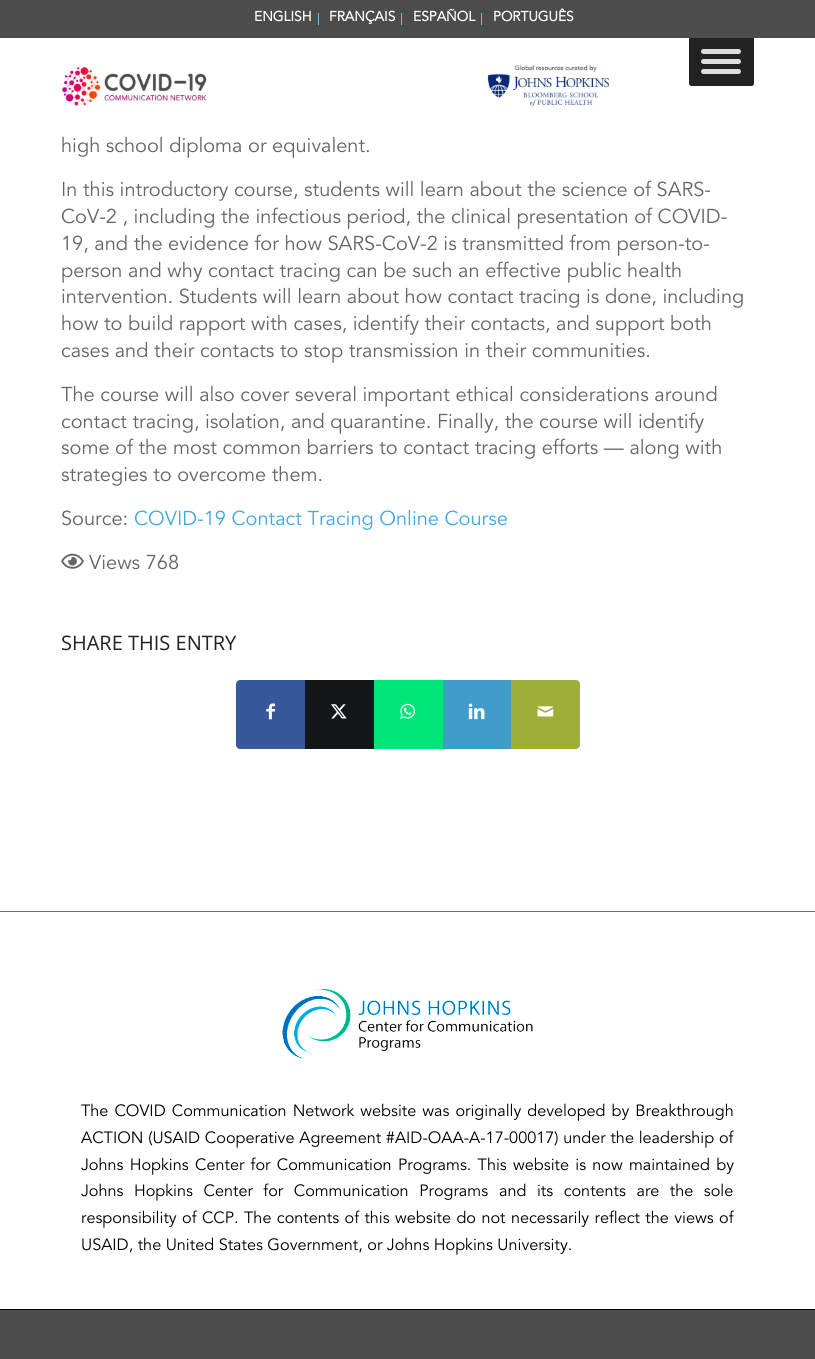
#include <cairo.h>
#include <math.h>
#include <stddef.h>

typedef struct { double x, y; const char *s; } line_t;

static void ink(cairo_t *ctx, unsigned color) {
    cairo_set_source_rgb(ctx, (color >> 16) / 255.0, (color >> 8 & 255) / 255.0, (color & 255) / 255.0);
}

static void write_spaced(cairo_t *ctx, double x, double y, const char *s, double letter, double word) {
    cairo_move_to(ctx, x, y);
    while (*s) {
        char ch[5] = {0};
        int n = 0;
        do ch[n++] = *s++; while ((*s & 0xC0) == 0x80);
        cairo_show_text(ctx, ch);
        cairo_rel_move_to(ctx, letter + word * (*ch == ' '), 0);
    }
}

static void round_path(cairo_t *ctx, double x, double y, double w, double h, double r) {
    cairo_new_sub_path(ctx);
    cairo_arc(ctx, x + w - r, y + h - r, r, 0, M_PI / 2);
    cairo_arc(ctx, x + r, y + h - r, r, M_PI / 2, M_PI);
    cairo_arc(ctx, x + r, y + r, r, M_PI, 1.5 * M_PI);
    cairo_arc(ctx, x + w - r, y + r, r, 1.5 * M_PI, 2 * M_PI);
    cairo_close_path(ctx);
}

static void paste(cairo_t *ctx, const char *path, double x, double y, double w, double h) {
    cairo_surface_t *image = cairo_image_surface_create_from_png(path);
    cairo_save(ctx);
    cairo_set_source_surface(ctx, image, x, y);
    cairo_rectangle(ctx, x, y, w, h);
    cairo_fill(ctx);
    cairo_restore(ctx);
    cairo_surface_destroy(image);
}

int main(void) {
    cairo_surface_t *surface = cairo_image_surface_create(CAIRO_FORMAT_RGB24, 815, 1359);
    cairo_t *ctx = cairo_create(surface);
    cairo_font_options_t *options = cairo_font_options_create();
    cairo_font_options_set_hint_metrics(options, CAIRO_HINT_METRICS_OFF);
    cairo_font_options_set_hint_style(options, CAIRO_HINT_STYLE_NONE);
    cairo_set_font_options(ctx, options);
    cairo_set_miter_limit(ctx, 4);
    ink(ctx, 0xFFFFFF);
    cairo_paint(ctx);
    ink(ctx, 0x222222);
    round_path(ctx, 689, 36, 65, 50, 2.5);
    cairo_fill(ctx);
    ink(ctx, 0x4C4C4C);
    cairo_rectangle(ctx, 0, 0, 815, 38);
    cairo_fill(ctx);
    ink(ctx, 0x6ABBE6);
    cairo_rectangle(ctx, 318, 13, 1, 12);
    cairo_fill(ctx);
    cairo_select_font_face(ctx, "Avenir", CAIRO_FONT_SLANT_NORMAL, CAIRO_FONT_WEIGHT_BOLD);
    cairo_set_font_size(ctx, 13.75);
    ink(ctx, 0xFFFFFF);
    cairo_move_to(ctx, 254, 21);
    cairo_show_text(ctx, "ENGLISH");
    ink(ctx, 0x6ABBE6);
    cairo_rectangle(ctx, 401, 13, 1, 12);
    cairo_fill(ctx);
    ink(ctx, 0xFFFFFF);
    cairo_move_to(ctx, 329, 21);
    cairo_show_text(ctx, "FRANÇAIS");
    ink(ctx, 0x6ABBE6);
    cairo_rectangle(ctx, 481, 13, 1, 12);
    cairo_fill(ctx);
    ink(ctx, 0xFFFFFF);
    cairo_move_to(ctx, 413, 21);
    cairo_show_text(ctx, "ESPAÑOL");
    cairo_move_to(ctx, 493, 21);
    cairo_show_text(ctx, "PORTUGUÊS");
    paste(ctx, "media/1.png", 62, 65, 547, 42);
    ink(ctx, 0xDDDDDD);
    round_path(ctx, 701, 49, 40, 5, 2.5);
    cairo_fill(ctx);
    round_path(ctx, 701, 59, 40, 5, 2.5);
    cairo_fill(ctx);
    round_path(ctx, 701, 69, 40, 5, 2.5);
    cairo_fill(ctx);
    cairo_select_font_face(ctx, "Avenir", CAIRO_FONT_SLANT_NORMAL, CAIRO_FONT_WEIGHT_NORMAL);
    cairo_set_font_size(ctx, 20);
    ink(ctx, 0x666666);
    {
        static const line_t items[] = {
            {61, 152, "high school diploma or equivalent."},
            {61, 196, "In this introductory course, students will learn about the science of SARS-"},
            {61, 223, "CoV-2 , including the infectious period, the clinical presentation of COVID-"},
            {61, 250, "19, and the evidence for how SARS-CoV-2 is transmitted from person-to-"},
            {61, 277, "person and why contact tracing can be such an effective public health"},
            {61, 303, "intervention. Students will learn about how contact tracing is done, including"},
            {61, 330, "how to build rapport with cases, identify their contacts, and support both"},
            {61, 357, "cases and their contacts to stop transmission in their communities."},
            {61, 401, "The course will also cover several important ethical considerations around"},
            {61, 428, "contact tracing, isolation, and quarantine. Finally, the course will identify"},
            {61, 454, "some of the most common barriers to contact tracing efforts — along with"},
            {61, 481, "strategies to overcome them."},
            {61, 525, "Source:"},
        };
        for (size_t i = 0; i < sizeof items / sizeof *items; i++) {
            cairo_move_to(ctx, items[i].x, items[i].y);
            cairo_show_text(ctx, items[i].s);
        }
    }
    ink(ctx, 0x40A8E4);
    cairo_move_to(ctx, 134, 525);
    cairo_show_text(ctx, "COVID-19 Contact Tracing Online Course");
    paste(ctx, "media/2.png", 61, 553, 23, 16);
    ink(ctx, 0x666666);
    cairo_move_to(ctx, 89, 569);
    cairo_show_text(ctx, "Views 768");
    cairo_select_font_face(ctx, "Open Sans", CAIRO_FONT_SLANT_NORMAL, CAIRO_FONT_WEIGHT_NORMAL);
    ink(ctx, 0x222222);
    cairo_move_to(ctx, 61, 650);
    cairo_show_text(ctx, "SHARE THIS ENTRY");
    ink(ctx, 0x37589B);
    cairo_new_path(ctx);
    cairo_move_to(ctx, 240, 680);
    cairo_line_to(ctx, 305, 680);
    cairo_line_to(ctx, 305, 749);
    cairo_line_to(ctx, 240, 749);
    cairo_curve_to(ctx, 238, 749, 236, 747, 236, 745);
    cairo_line_to(ctx, 236, 684);
    cairo_curve_to(ctx, 236, 682, 238, 680, 240, 680);
    cairo_close_path(ctx);
    cairo_fill(ctx);
    paste(ctx, "media/3.png", 266, 703, 9, 17);
    ink(ctx, 0x14171A);
    cairo_rectangle(ctx, 305, 680, 69, 69);
    cairo_fill(ctx);
    paste(ctx, "media/4.png", 331, 704, 16, 15);
    ink(ctx, 0x00E676);
    cairo_rectangle(ctx, 374, 680, 69, 69);
    cairo_fill(ctx);
    paste(ctx, "media/5.png", 400, 703, 15, 16);
    ink(ctx, 0x419CCA);
    cairo_rectangle(ctx, 443, 680, 68, 69);
    cairo_fill(ctx);
    paste(ctx, "media/6.png", 468, 703, 17, 17);
    ink(ctx, 0x9FAE37);
    cairo_new_path(ctx);
    cairo_move_to(ctx, 511, 680);
    cairo_line_to(ctx, 576, 680);
    cairo_curve_to(ctx, 578, 680, 580, 682, 580, 684);
    cairo_line_to(ctx, 580, 745);
    cairo_curve_to(ctx, 580, 747, 578, 749, 576, 749);
    cairo_line_to(ctx, 511, 749);
    cairo_close_path(ctx);
    cairo_fill(ctx);
    paste(ctx, "media/7.png", 537, 706, 17, 11);
    ink(ctx, 0x2388C2);
    cairo_rectangle(ctx, 0, 911, 815, 1);
    cairo_fill(ctx);
    paste(ctx, "media/8.png", 282, 989, 251, 70);
    cairo_select_font_face(ctx, "Avenir", CAIRO_FONT_SLANT_NORMAL, CAIRO_FONT_WEIGHT_NORMAL);
    cairo_set_font_size(ctx, 16.25);
    ink(ctx, 0x000000);
    write_spaced(ctx, 81, 1116, "The COVID Communication Network website was originally developed by Breakthrough", 0, 1.5);
    write_spaced(ctx, 81, 1143, "ACTION (USAID Cooperative Agreement #AID-OAA-A-17-00017) under the leadership of", 0, 0.25);
    write_spaced(ctx, 81, 1170, "Johns Hopkins Center for Communication Programs. This website is now maintained by", 0, 1.75);
    write_spaced(ctx, 81, 1196, "Johns Hopkins Center for Communication Programs", 0, 6);
    write_spaced(ctx, 499, 1196, "and its contents are the sole", 0, 6);
    write_spaced(ctx, 81, 1223, "responsibility of CCP. The contents of this website do not necessarily reflect the views of", 0, 0.9);
    cairo_move_to(ctx, 81, 1250);
    cairo_show_text(ctx, "USAID, the United States Government, or Johns Hopkins University.");
    ink(ctx, 0x4C4C4C);
    cairo_rectangle(ctx, 0, 1310, 815, 49);
    cairo_fill(ctx);
    ink(ctx, 0x000000);
    cairo_rectangle(ctx, 0, 1309, 815, 1);
    cairo_fill(ctx);
    cairo_surface_write_to_png(surface, "image.png");
    cairo_font_options_destroy(options);
    cairo_destroy(ctx);
    cairo_surface_destroy(surface);
    return 0;
}
